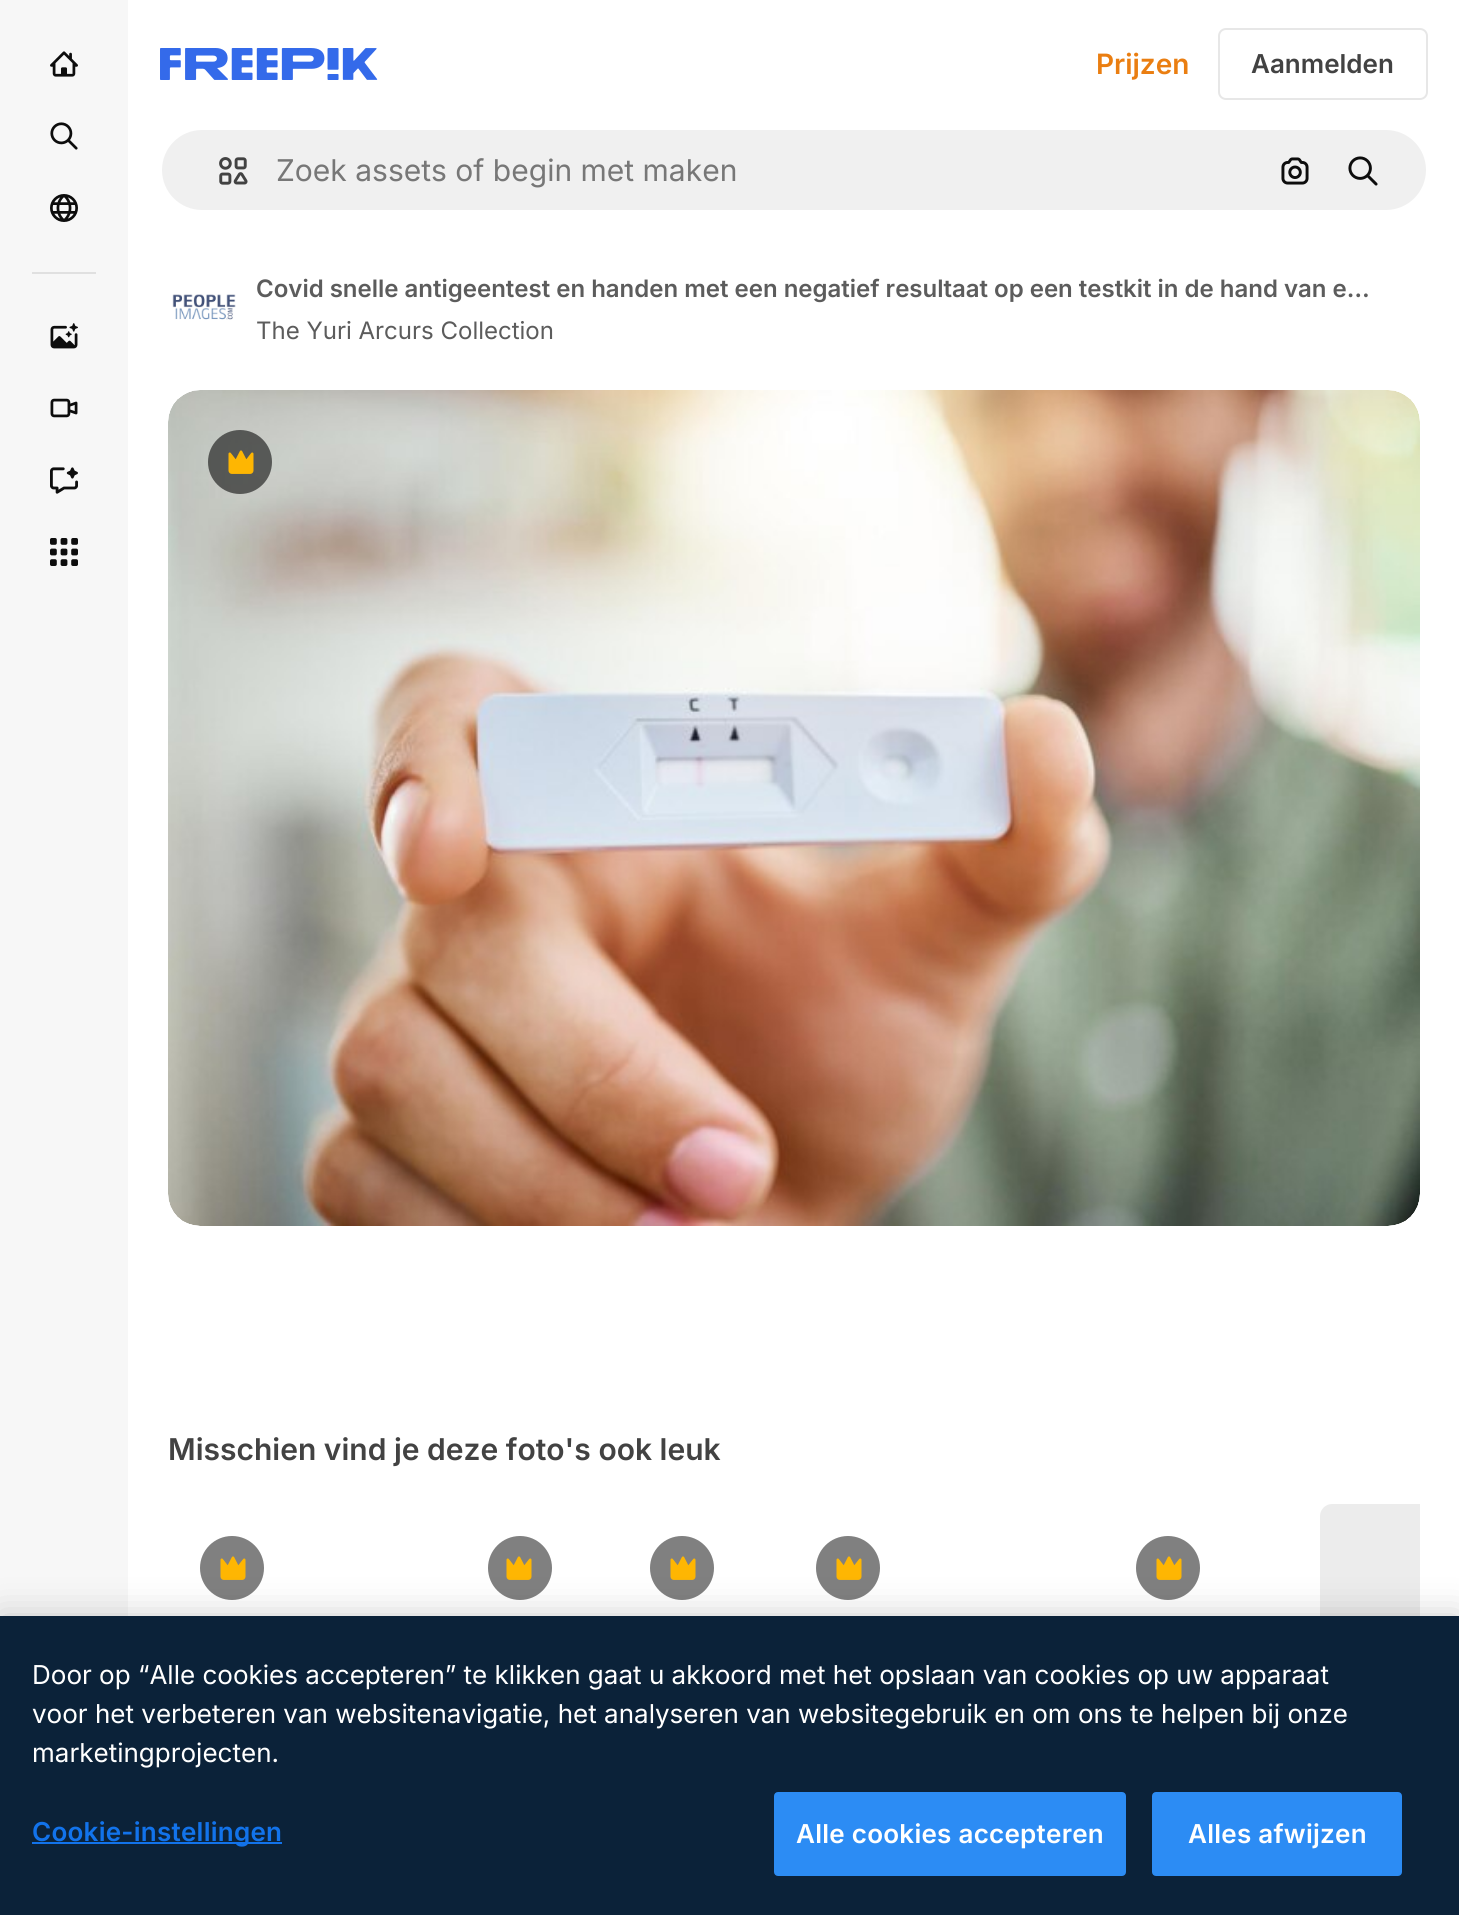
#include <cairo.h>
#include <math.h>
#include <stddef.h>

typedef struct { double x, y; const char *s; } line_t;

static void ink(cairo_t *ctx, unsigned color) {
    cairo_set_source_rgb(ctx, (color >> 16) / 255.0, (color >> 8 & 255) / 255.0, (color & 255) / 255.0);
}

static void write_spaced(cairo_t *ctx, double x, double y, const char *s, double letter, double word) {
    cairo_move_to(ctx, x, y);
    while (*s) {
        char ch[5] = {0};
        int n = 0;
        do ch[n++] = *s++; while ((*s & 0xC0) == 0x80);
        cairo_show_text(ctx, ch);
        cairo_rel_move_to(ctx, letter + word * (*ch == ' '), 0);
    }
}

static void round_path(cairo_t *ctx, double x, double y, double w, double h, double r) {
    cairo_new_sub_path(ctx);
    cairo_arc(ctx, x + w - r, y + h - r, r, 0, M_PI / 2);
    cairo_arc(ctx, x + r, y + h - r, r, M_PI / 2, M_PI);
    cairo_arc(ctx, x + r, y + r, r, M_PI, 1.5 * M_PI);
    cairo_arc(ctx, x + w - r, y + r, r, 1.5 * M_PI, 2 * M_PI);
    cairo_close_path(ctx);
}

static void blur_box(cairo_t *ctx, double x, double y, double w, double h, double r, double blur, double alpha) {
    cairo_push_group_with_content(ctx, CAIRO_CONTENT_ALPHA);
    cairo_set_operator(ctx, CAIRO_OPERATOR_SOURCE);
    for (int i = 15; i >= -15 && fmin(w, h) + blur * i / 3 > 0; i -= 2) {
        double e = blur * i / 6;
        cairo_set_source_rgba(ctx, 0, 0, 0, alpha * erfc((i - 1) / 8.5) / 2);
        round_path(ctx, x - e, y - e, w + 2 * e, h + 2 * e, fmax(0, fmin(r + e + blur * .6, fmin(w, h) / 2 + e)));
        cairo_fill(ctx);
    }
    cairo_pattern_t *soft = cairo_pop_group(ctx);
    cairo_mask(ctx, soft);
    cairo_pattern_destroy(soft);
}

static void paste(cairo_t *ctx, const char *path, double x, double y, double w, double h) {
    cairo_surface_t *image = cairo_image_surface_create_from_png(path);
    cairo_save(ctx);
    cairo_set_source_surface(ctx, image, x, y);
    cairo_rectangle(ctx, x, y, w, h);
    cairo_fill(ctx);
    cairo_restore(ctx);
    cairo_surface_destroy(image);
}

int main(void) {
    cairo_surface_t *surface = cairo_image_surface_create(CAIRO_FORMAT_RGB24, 1459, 1915);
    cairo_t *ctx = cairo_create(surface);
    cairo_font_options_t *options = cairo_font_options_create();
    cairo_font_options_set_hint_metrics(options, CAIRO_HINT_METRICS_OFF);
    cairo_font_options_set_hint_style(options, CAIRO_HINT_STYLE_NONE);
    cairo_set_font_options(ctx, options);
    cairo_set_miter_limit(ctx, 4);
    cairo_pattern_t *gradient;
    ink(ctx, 0xFFFFFF);
    cairo_paint(ctx);
    ink(ctx, 0xF7F7F7);
    cairo_rectangle(ctx, 0, 0, 128, 1616);
    cairo_fill(ctx);
    paste(ctx, "media/1.png", 50, 51, 28, 26);
    paste(ctx, "media/2.png", 50, 122, 28, 28);
    paste(ctx, "media/3.png", 50, 194, 28, 28);
    ink(ctx, 0xE0E0E0);
    cairo_rectangle(ctx, 32, 272, 64, 2);
    cairo_fill(ctx);
    paste(ctx, "media/4.png", 50, 323, 28, 26);
    paste(ctx, "media/5.png", 50, 398, 28, 20);
    paste(ctx, "media/6.png", 50, 467, 28, 27);
    paste(ctx, "media/7.png", 50, 538, 28, 28);
    paste(ctx, "media/8.png", 160, 48, 218, 32);
    cairo_select_font_face(ctx, "Inter SemiBold", CAIRO_FONT_SLANT_NORMAL, CAIRO_FONT_WEIGHT_NORMAL);
    cairo_set_font_size(ctx, 28);
    ink(ctx, 0xEA7E11);
    cairo_move_to(ctx, 1096, 74);
    cairo_show_text(ctx, "Prijzen");
    round_path(ctx, 1219, 29, 208, 70, 7);
    ink(ctx, 0xE7E7E7);
    cairo_stroke(ctx);
    cairo_set_font_size(ctx, 26);
    ink(ctx, 0x424242);
    cairo_move_to(ctx, 1251, 73);
    cairo_show_text(ctx, "Aanmelden");
    ink(ctx, 0xF0F0F0);
    round_path(ctx, 161, 129, 1266, 82, 41);
    cairo_fill_preserve(ctx);
    ink(ctx, 0xFFFFFF);
    cairo_stroke(ctx);
    paste(ctx, "media/9.png", 219, 157, 29, 28);
    cairo_select_font_face(ctx, "Inter", CAIRO_FONT_SLANT_NORMAL, CAIRO_FONT_WEIGHT_NORMAL);
    cairo_set_font_size(ctx, 30);
    ink(ctx, 0x777777);
    cairo_move_to(ctx, 276, 181);
    cairo_show_text(ctx, "Zoek assets of begin met maken");
    paste(ctx, "media/10.png", 1281, 157, 28, 28);
    paste(ctx, "media/11.png", 1348, 156, 30, 30);
    cairo_select_font_face(ctx, "Inter SemiBold", CAIRO_FONT_SLANT_NORMAL, CAIRO_FONT_WEIGHT_NORMAL);
    cairo_set_font_size(ctx, 24);
    ink(ctx, 0x5C5C5C);
    cairo_move_to(ctx, 256, 297);
    cairo_show_text(ctx, "Covid snelle antigeentest en handen met een negatief resultaat op een testkit in de hand van e…");
    paste(ctx, "media/12.png", 172, 294, 64, 26);
    cairo_select_font_face(ctx, "Inter", CAIRO_FONT_SLANT_NORMAL, CAIRO_FONT_WEIGHT_NORMAL);
    cairo_move_to(ctx, 256, 339);
    cairo_show_text(ctx, "The Yuri Arcurs Collection");
    paste(ctx, "media/13.png", 168, 390, 1252, 836);
    cairo_set_source_rgba(ctx, 0.051, 0.051, 0.051, 0.6);
    cairo_arc(ctx, 240, 462, 32, 0, 2 * M_PI);
    cairo_fill(ctx);
    paste(ctx, "media/14.png", 228, 450, 26, 24);
    cairo_select_font_face(ctx, "Inter SemiBold", CAIRO_FONT_SLANT_NORMAL, CAIRO_FONT_WEIGHT_NORMAL);
    cairo_set_font_size(ctx, 30);
    ink(ctx, 0x424242);
    cairo_move_to(ctx, 168, 1460);
    cairo_show_text(ctx, "Misschien vind je deze foto's ook leuk");
    ink(ctx, 0x808080);
    cairo_new_path(ctx);
    cairo_arc(ctx, 232, 1568, 32, 0, 2 * M_PI);
    cairo_fill(ctx);
    paste(ctx, "media/15.png", 220, 1556, 26, 24);
    cairo_arc(ctx, 520, 1568, 32, 0, 2 * M_PI);
    cairo_fill(ctx);
    paste(ctx, "media/15.png", 506, 1556, 26, 24);
    cairo_arc(ctx, 682, 1568, 32, 0, 2 * M_PI);
    cairo_fill(ctx);
    paste(ctx, "media/15.png", 670, 1556, 26, 24);
    cairo_arc(ctx, 848, 1568, 32, 0, 2 * M_PI);
    cairo_fill(ctx);
    paste(ctx, "media/15.png", 836, 1556, 26, 24);
    cairo_arc(ctx, 1168, 1568, 32, 0, 2 * M_PI);
    cairo_fill(ctx);
    paste(ctx, "media/15.png", 1156, 1556, 26, 24);
    gradient = cairo_pattern_create_linear(1391, 1308, 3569, 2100);
    cairo_pattern_add_color_stop_rgba(gradient, 0.08, 0.925, 0.925, 0.925, 1);
    cairo_pattern_add_color_stop_rgba(gradient, 0.18, 0.961, 0.961, 0.961, 1);
    cairo_pattern_add_color_stop_rgba(gradient, 0.33, 0.925, 0.925, 0.925, 1);
    cairo_set_source(ctx, gradient);
    cairo_pattern_destroy(gradient);
    cairo_new_path(ctx);
    cairo_move_to(ctx, 1332, 1504);
    cairo_line_to(ctx, 1420, 1504);
    cairo_line_to(ctx, 1420, 1904);
    cairo_line_to(ctx, 1332, 1904);
    cairo_curve_to(ctx, 1325.5, 1904, 1320, 1898.5, 1320, 1892);
    cairo_line_to(ctx, 1320, 1516);
    cairo_curve_to(ctx, 1320, 1509.5, 1325.5, 1504, 1332, 1504);
    cairo_close_path(ctx);
    cairo_fill(ctx);
    ink(ctx, 0x000000);
    blur_box(ctx, 0, 1616, 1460, 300, 0, 18, 0.2);
    ink(ctx, 0x0B2239);
    cairo_rectangle(ctx, 0, 1616, 1459, 299);
    cairo_fill(ctx);
    cairo_select_font_face(ctx, "Inter", CAIRO_FONT_SLANT_NORMAL, CAIRO_FONT_WEIGHT_NORMAL);
    cairo_set_font_size(ctx, 26.02);
    ink(ctx, 0xFFFFFF);
    {
        static const line_t items[] = {
            {32, 1684, "Door op “Alle cookies accepteren” te klikken gaat u akkoord met het opslaan van cookies op uw apparaat"},
            {32, 1723, "voor het verbeteren van websitenavigatie, het analyseren van websitegebruik en om ons te helpen bij onze"},
            {32, 1762, "marketingprojecten."},
        };
        for (size_t i = 0; i < sizeof items / sizeof *items; i++) {
            cairo_move_to(ctx, items[i].x, items[i].y);
            cairo_show_text(ctx, items[i].s);
        }
    }
    ink(ctx, 0x1273EB);
    cairo_rectangle(ctx, 32, 1842, 250, 2);
    cairo_fill(ctx);
    cairo_select_font_face(ctx, "Inter SemiBold", CAIRO_FONT_SLANT_NORMAL, CAIRO_FONT_WEIGHT_NORMAL);
    write_spaced(ctx, 32, 1841, "Cookie-instellingen", 0.25, 0);
    ink(ctx, 0x2C8CF4);
    round_path(ctx, 775, 1793, 350, 82, 3);
    cairo_fill_preserve(ctx);
    cairo_stroke(ctx);
    ink(ctx, 0xFFFFFF);
    write_spaced(ctx, 796, 1843, "Alle cookies accepteren", 0.25, 0);
    ink(ctx, 0x2C8CF4);
    round_path(ctx, 1153, 1793, 248, 82, 3);
    cairo_fill_preserve(ctx);
    cairo_stroke(ctx);
    ink(ctx, 0xFFFFFF);
    write_spaced(ctx, 1188, 1843, "Alles afwijzen", 0.25, 0);
    cairo_surface_write_to_png(surface, "image.png");
    cairo_font_options_destroy(options);
    cairo_destroy(ctx);
    cairo_surface_destroy(surface);
    return 0;
}
